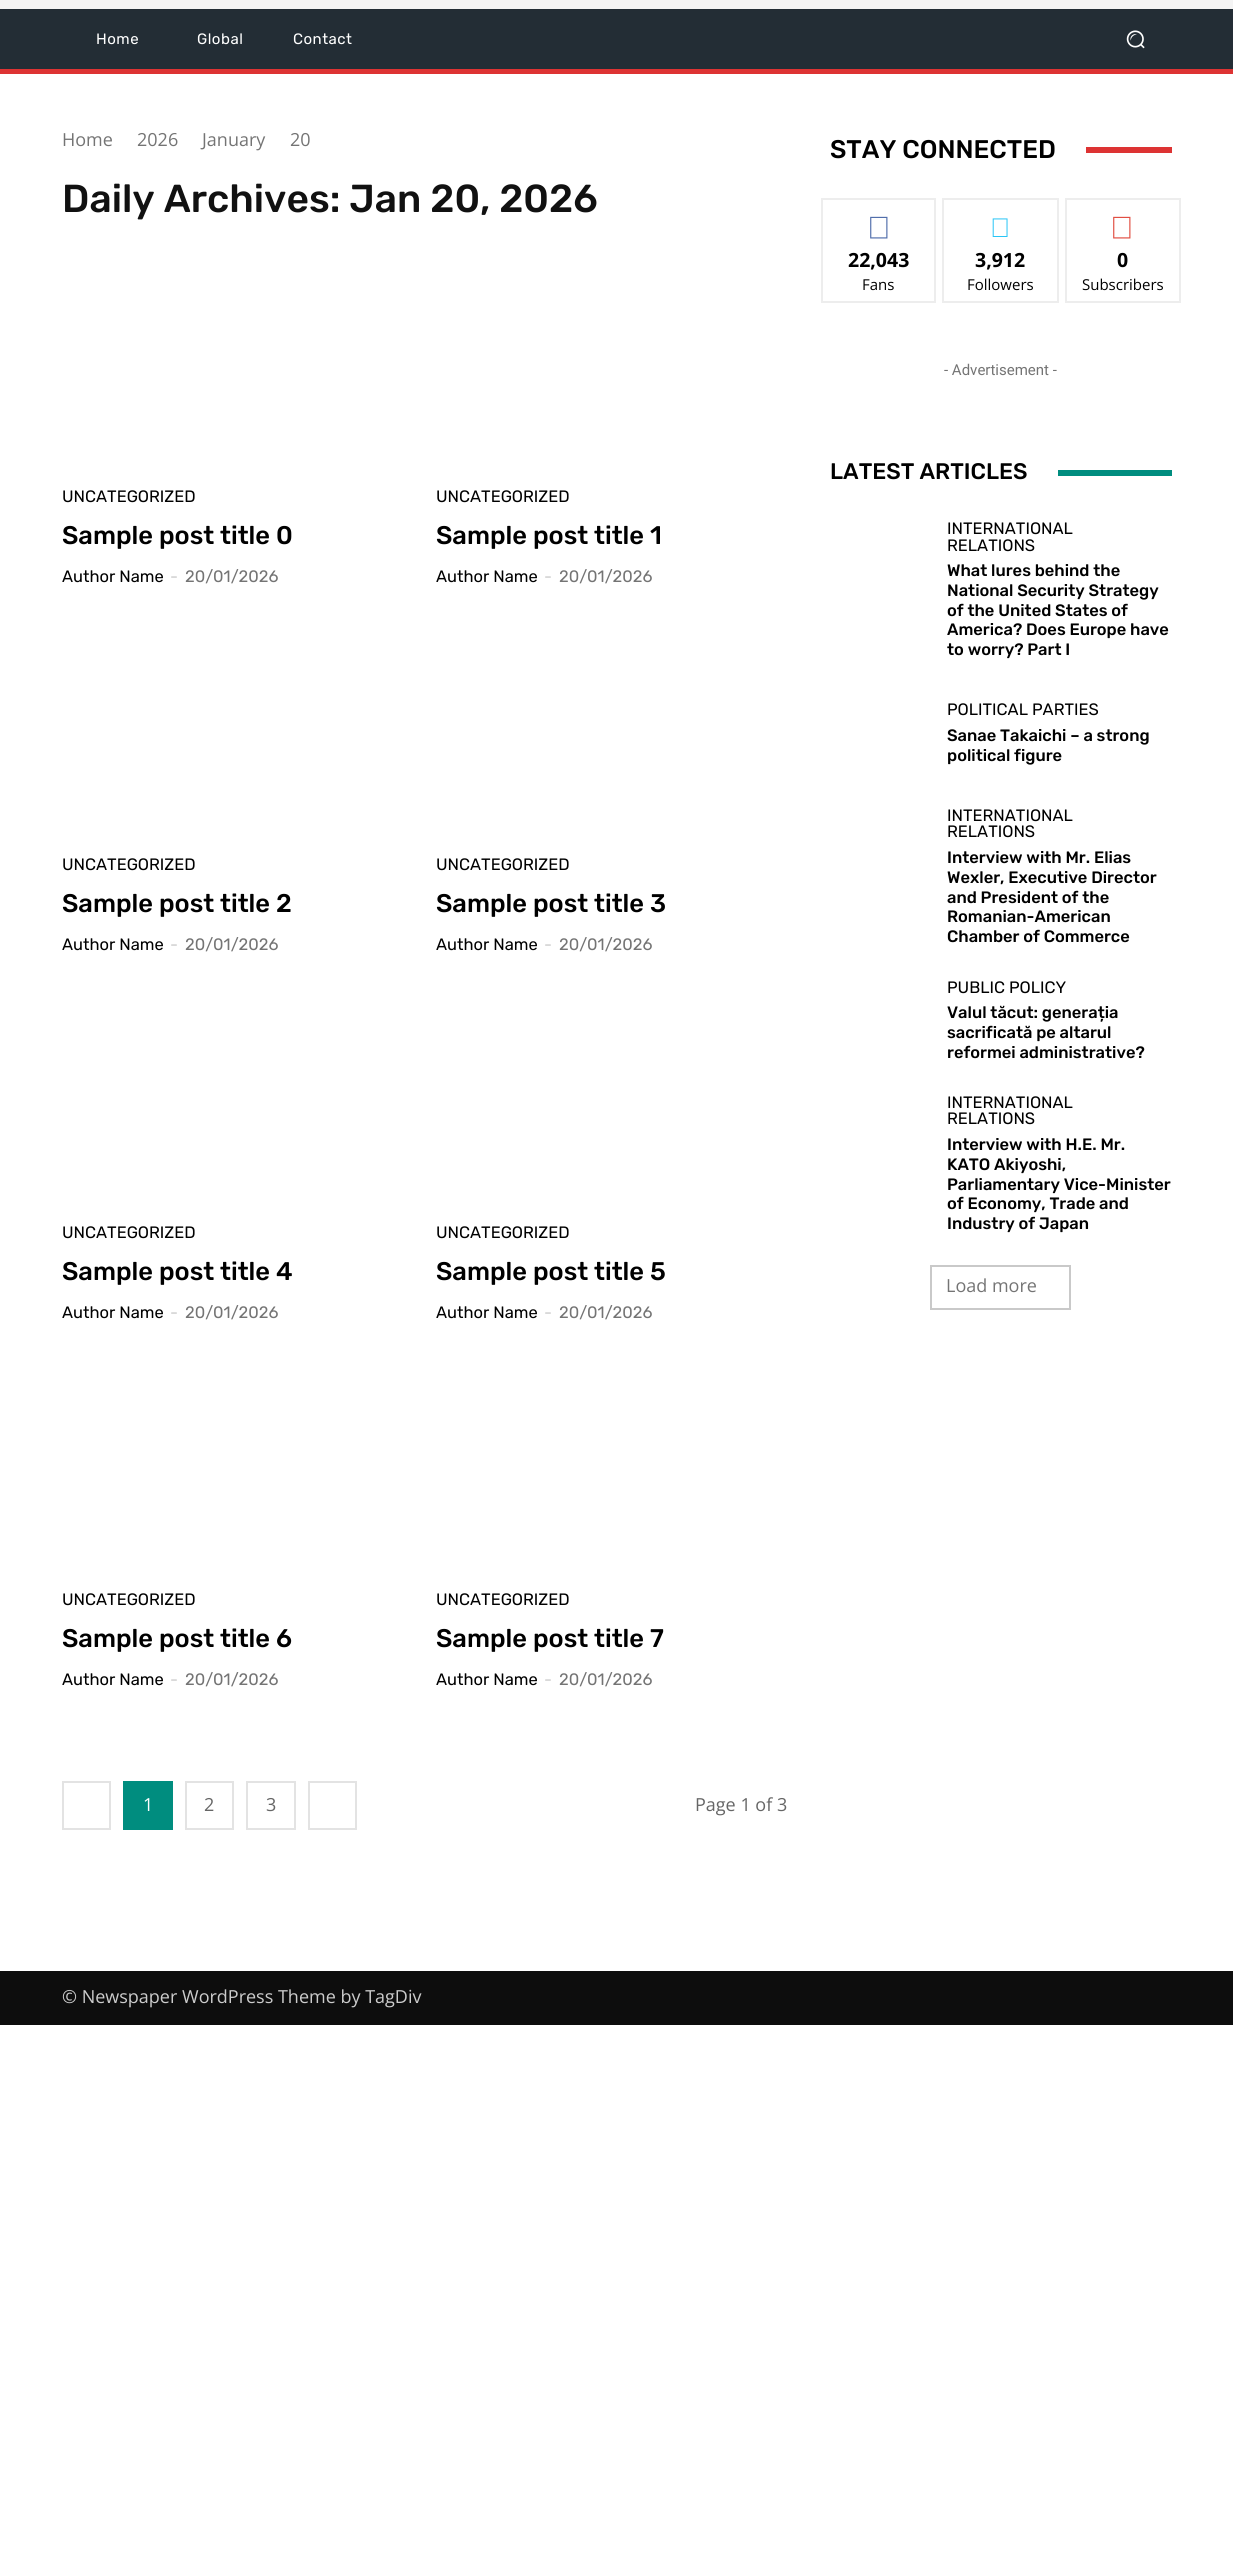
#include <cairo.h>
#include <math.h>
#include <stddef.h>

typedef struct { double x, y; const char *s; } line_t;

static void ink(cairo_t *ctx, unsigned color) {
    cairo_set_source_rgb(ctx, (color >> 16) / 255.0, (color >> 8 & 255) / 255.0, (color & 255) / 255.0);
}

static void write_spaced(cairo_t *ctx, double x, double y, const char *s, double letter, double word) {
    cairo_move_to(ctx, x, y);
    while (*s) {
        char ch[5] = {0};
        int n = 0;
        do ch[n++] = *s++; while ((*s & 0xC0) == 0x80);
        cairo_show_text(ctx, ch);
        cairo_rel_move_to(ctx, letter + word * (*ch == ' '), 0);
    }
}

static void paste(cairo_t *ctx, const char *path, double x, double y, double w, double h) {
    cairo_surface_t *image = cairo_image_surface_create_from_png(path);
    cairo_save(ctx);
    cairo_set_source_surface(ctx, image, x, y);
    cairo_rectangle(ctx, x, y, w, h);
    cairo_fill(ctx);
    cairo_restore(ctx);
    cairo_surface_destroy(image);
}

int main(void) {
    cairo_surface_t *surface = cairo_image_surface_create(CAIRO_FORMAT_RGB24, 1233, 2569);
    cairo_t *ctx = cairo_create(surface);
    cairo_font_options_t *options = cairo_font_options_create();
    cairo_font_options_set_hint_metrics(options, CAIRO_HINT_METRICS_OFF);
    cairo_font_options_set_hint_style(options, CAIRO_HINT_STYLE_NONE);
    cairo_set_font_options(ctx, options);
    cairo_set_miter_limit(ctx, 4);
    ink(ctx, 0xFFFFFF);
    cairo_paint(ctx);
    ink(ctx, 0xF4F4F4);
    cairo_rectangle(ctx, 0, 0, 1233, 9);
    cairo_fill(ctx);
    ink(ctx, 0x232D35);
    cairo_rectangle(ctx, 0, 9, 1233, 60);
    cairo_fill(ctx);
    cairo_select_font_face(ctx, "Rubik", CAIRO_FONT_SLANT_NORMAL, CAIRO_FONT_WEIGHT_NORMAL);
    cairo_set_font_size(ctx, 15);
    ink(ctx, 0xFFFFFF);
    {
        static const line_t items[] = {
            {96, 44, "Home"},
            {197, 44, "Global"},
            {293, 44, "Contact"},
        };
        for (size_t i = 0; i < sizeof items / sizeof *items; i++) {
            write_spaced(ctx, items[i].x, items[i].y, items[i].s, 0.5, 0);
        }
    }
    paste(ctx, "media/1.png", 1126, 30, 19, 19);
    ink(ctx, 0xDD3333);
    cairo_rectangle(ctx, 0, 69, 1233, 5);
    cairo_fill(ctx);
    cairo_select_font_face(ctx, "Open Sans", CAIRO_FONT_SLANT_NORMAL, CAIRO_FONT_WEIGHT_NORMAL);
    cairo_set_font_size(ctx, 18);
    ink(ctx, 0x747474);
    {
        static const line_t items[] = {
            {62, 146, "Home"},
            {137, 146, "2026"},
            {202, 146, "January"},
            {290, 146, "20"},
        };
        for (size_t i = 0; i < sizeof items / sizeof *items; i++) {
            cairo_move_to(ctx, items[i].x, items[i].y);
            cairo_show_text(ctx, items[i].s);
        }
    }
    cairo_select_font_face(ctx, "Rubik Medium", CAIRO_FONT_SLANT_NORMAL, CAIRO_FONT_WEIGHT_NORMAL);
    cairo_set_font_size(ctx, 39);
    ink(ctx, 0x111111);
    cairo_move_to(ctx, 62, 212);
    cairo_show_text(ctx, "Daily Archives: Jan 20, 2026");
    cairo_select_font_face(ctx, "Rubik", CAIRO_FONT_SLANT_NORMAL, CAIRO_FONT_WEIGHT_NORMAL);
    cairo_set_font_size(ctx, 16.5);
    ink(ctx, 0x000000);
    cairo_move_to(ctx, 62, 502);
    cairo_show_text(ctx, "UNCATEGORIZED");
    cairo_select_font_face(ctx, "Rubik Medium", CAIRO_FONT_SLANT_NORMAL, CAIRO_FONT_WEIGHT_NORMAL);
    cairo_set_font_size(ctx, 25.5);
    cairo_move_to(ctx, 62, 544);
    cairo_show_text(ctx, "Sample post title 0");
    cairo_select_font_face(ctx, "Rubik", CAIRO_FONT_SLANT_NORMAL, CAIRO_FONT_WEIGHT_NORMAL);
    cairo_set_font_size(ctx, 16.5);
    cairo_move_to(ctx, 62, 582);
    cairo_show_text(ctx, "Author Name");
    ink(ctx, 0xCCCCCC);
    cairo_move_to(ctx, 170, 582);
    cairo_show_text(ctx, "-");
    ink(ctx, 0x747474);
    cairo_move_to(ctx, 185, 582);
    cairo_show_text(ctx, "20/01/2026");
    ink(ctx, 0x000000);
    cairo_move_to(ctx, 436, 502);
    cairo_show_text(ctx, "UNCATEGORIZED");
    cairo_select_font_face(ctx, "Rubik Medium", CAIRO_FONT_SLANT_NORMAL, CAIRO_FONT_WEIGHT_NORMAL);
    cairo_set_font_size(ctx, 25.5);
    cairo_move_to(ctx, 436, 544);
    cairo_show_text(ctx, "Sample post title 1");
    cairo_select_font_face(ctx, "Rubik", CAIRO_FONT_SLANT_NORMAL, CAIRO_FONT_WEIGHT_NORMAL);
    cairo_set_font_size(ctx, 16.5);
    cairo_move_to(ctx, 436, 582);
    cairo_show_text(ctx, "Author Name");
    ink(ctx, 0xCCCCCC);
    cairo_move_to(ctx, 544, 582);
    cairo_show_text(ctx, "-");
    ink(ctx, 0x747474);
    cairo_move_to(ctx, 559, 582);
    cairo_show_text(ctx, "20/01/2026");
    ink(ctx, 0x000000);
    cairo_move_to(ctx, 62, 870);
    cairo_show_text(ctx, "UNCATEGORIZED");
    cairo_select_font_face(ctx, "Rubik Medium", CAIRO_FONT_SLANT_NORMAL, CAIRO_FONT_WEIGHT_NORMAL);
    cairo_set_font_size(ctx, 25.5);
    cairo_move_to(ctx, 62, 912);
    cairo_show_text(ctx, "Sample post title 2");
    cairo_select_font_face(ctx, "Rubik", CAIRO_FONT_SLANT_NORMAL, CAIRO_FONT_WEIGHT_NORMAL);
    cairo_set_font_size(ctx, 16.5);
    cairo_move_to(ctx, 62, 950);
    cairo_show_text(ctx, "Author Name");
    ink(ctx, 0xCCCCCC);
    cairo_move_to(ctx, 170, 950);
    cairo_show_text(ctx, "-");
    ink(ctx, 0x747474);
    cairo_move_to(ctx, 185, 950);
    cairo_show_text(ctx, "20/01/2026");
    ink(ctx, 0x000000);
    cairo_move_to(ctx, 436, 870);
    cairo_show_text(ctx, "UNCATEGORIZED");
    cairo_select_font_face(ctx, "Rubik Medium", CAIRO_FONT_SLANT_NORMAL, CAIRO_FONT_WEIGHT_NORMAL);
    cairo_set_font_size(ctx, 25.5);
    cairo_move_to(ctx, 436, 912);
    cairo_show_text(ctx, "Sample post title 3");
    cairo_select_font_face(ctx, "Rubik", CAIRO_FONT_SLANT_NORMAL, CAIRO_FONT_WEIGHT_NORMAL);
    cairo_set_font_size(ctx, 16.5);
    cairo_move_to(ctx, 436, 950);
    cairo_show_text(ctx, "Author Name");
    ink(ctx, 0xCCCCCC);
    cairo_move_to(ctx, 544, 950);
    cairo_show_text(ctx, "-");
    ink(ctx, 0x747474);
    cairo_move_to(ctx, 559, 950);
    cairo_show_text(ctx, "20/01/2026");
    ink(ctx, 0x000000);
    cairo_move_to(ctx, 62, 1238);
    cairo_show_text(ctx, "UNCATEGORIZED");
    cairo_select_font_face(ctx, "Rubik Medium", CAIRO_FONT_SLANT_NORMAL, CAIRO_FONT_WEIGHT_NORMAL);
    cairo_set_font_size(ctx, 25.5);
    cairo_move_to(ctx, 62, 1280);
    cairo_show_text(ctx, "Sample post title 4");
    cairo_select_font_face(ctx, "Rubik", CAIRO_FONT_SLANT_NORMAL, CAIRO_FONT_WEIGHT_NORMAL);
    cairo_set_font_size(ctx, 16.5);
    cairo_move_to(ctx, 62, 1318);
    cairo_show_text(ctx, "Author Name");
    ink(ctx, 0xCCCCCC);
    cairo_move_to(ctx, 170, 1318);
    cairo_show_text(ctx, "-");
    ink(ctx, 0x747474);
    cairo_move_to(ctx, 185, 1318);
    cairo_show_text(ctx, "20/01/2026");
    ink(ctx, 0x000000);
    cairo_move_to(ctx, 436, 1238);
    cairo_show_text(ctx, "UNCATEGORIZED");
    cairo_select_font_face(ctx, "Rubik Medium", CAIRO_FONT_SLANT_NORMAL, CAIRO_FONT_WEIGHT_NORMAL);
    cairo_set_font_size(ctx, 25.5);
    cairo_move_to(ctx, 436, 1280);
    cairo_show_text(ctx, "Sample post title 5");
    cairo_select_font_face(ctx, "Rubik", CAIRO_FONT_SLANT_NORMAL, CAIRO_FONT_WEIGHT_NORMAL);
    cairo_set_font_size(ctx, 16.5);
    cairo_move_to(ctx, 436, 1318);
    cairo_show_text(ctx, "Author Name");
    ink(ctx, 0xCCCCCC);
    cairo_move_to(ctx, 544, 1318);
    cairo_show_text(ctx, "-");
    ink(ctx, 0x747474);
    cairo_move_to(ctx, 559, 1318);
    cairo_show_text(ctx, "20/01/2026");
    ink(ctx, 0x000000);
    cairo_move_to(ctx, 62, 1605);
    cairo_show_text(ctx, "UNCATEGORIZED");
    cairo_select_font_face(ctx, "Rubik Medium", CAIRO_FONT_SLANT_NORMAL, CAIRO_FONT_WEIGHT_NORMAL);
    cairo_set_font_size(ctx, 25.5);
    cairo_move_to(ctx, 62, 1647);
    cairo_show_text(ctx, "Sample post title 6");
    cairo_select_font_face(ctx, "Rubik", CAIRO_FONT_SLANT_NORMAL, CAIRO_FONT_WEIGHT_NORMAL);
    cairo_set_font_size(ctx, 16.5);
    cairo_move_to(ctx, 62, 1685);
    cairo_show_text(ctx, "Author Name");
    ink(ctx, 0xCCCCCC);
    cairo_move_to(ctx, 170, 1685);
    cairo_show_text(ctx, "-");
    ink(ctx, 0x747474);
    cairo_move_to(ctx, 185, 1685);
    cairo_show_text(ctx, "20/01/2026");
    ink(ctx, 0x000000);
    cairo_move_to(ctx, 436, 1605);
    cairo_show_text(ctx, "UNCATEGORIZED");
    cairo_select_font_face(ctx, "Rubik Medium", CAIRO_FONT_SLANT_NORMAL, CAIRO_FONT_WEIGHT_NORMAL);
    cairo_set_font_size(ctx, 25.5);
    cairo_move_to(ctx, 436, 1647);
    cairo_show_text(ctx, "Sample post title 7");
    cairo_select_font_face(ctx, "Rubik", CAIRO_FONT_SLANT_NORMAL, CAIRO_FONT_WEIGHT_NORMAL);
    cairo_set_font_size(ctx, 16.5);
    cairo_move_to(ctx, 436, 1685);
    cairo_show_text(ctx, "Author Name");
    ink(ctx, 0xCCCCCC);
    cairo_move_to(ctx, 544, 1685);
    cairo_show_text(ctx, "-");
    ink(ctx, 0x747474);
    cairo_move_to(ctx, 559, 1685);
    cairo_show_text(ctx, "20/01/2026");
    cairo_rectangle(ctx, 63, 1782, 47, 47);
    ink(ctx, 0xE3E3E3);
    cairo_stroke(ctx);
    ink(ctx, 0x008D7F);
    cairo_rectangle(ctx, 123, 1781, 50, 49);
    cairo_fill(ctx);
    cairo_select_font_face(ctx, "Open Sans", CAIRO_FONT_SLANT_NORMAL, CAIRO_FONT_WEIGHT_NORMAL);
    cairo_set_font_size(ctx, 18);
    ink(ctx, 0xFFFFFF);
    cairo_move_to(ctx, 143, 1811);
    cairo_show_text(ctx, "1");
    cairo_rectangle(ctx, 186, 1782, 47, 47);
    ink(ctx, 0xE3E3E3);
    cairo_stroke(ctx);
    ink(ctx, 0x666666);
    cairo_move_to(ctx, 204, 1811);
    cairo_show_text(ctx, "2");
    cairo_rectangle(ctx, 247, 1782, 48, 47);
    ink(ctx, 0xE3E3E3);
    cairo_stroke(ctx);
    ink(ctx, 0x666666);
    cairo_move_to(ctx, 266, 1811);
    cairo_show_text(ctx, "3");
    cairo_rectangle(ctx, 309, 1782, 47, 47);
    ink(ctx, 0xE3E3E3);
    cairo_stroke(ctx);
    ink(ctx, 0x666666);
    cairo_move_to(ctx, 695, 1811);
    cairo_show_text(ctx, "Page 1 of 3");
    cairo_select_font_face(ctx, "Rubik Medium", CAIRO_FONT_SLANT_NORMAL, CAIRO_FONT_WEIGHT_NORMAL);
    cairo_set_font_size(ctx, 25.5);
    ink(ctx, 0x000000);
    cairo_move_to(ctx, 830, 158);
    cairo_show_text(ctx, "STAY CONNECTED");
    ink(ctx, 0xDD3333);
    cairo_rectangle(ctx, 1086, 147, 86, 6);
    cairo_fill(ctx);
    cairo_rectangle(ctx, 822, 199, 113, 103);
    ink(ctx, 0xEDEDED);
    cairo_stroke(ctx);
    paste(ctx, "media/2.png", 870, 216, 18, 23);
    cairo_select_font_face(ctx, "Open Sans", CAIRO_FONT_SLANT_NORMAL, CAIRO_FONT_WEIGHT_BOLD);
    cairo_set_font_size(ctx, 19.5);
    ink(ctx, 0x000000);
    cairo_move_to(ctx, 848, 267);
    cairo_show_text(ctx, "22,043");
    cairo_select_font_face(ctx, "Open Sans", CAIRO_FONT_SLANT_NORMAL, CAIRO_FONT_WEIGHT_NORMAL);
    cairo_set_font_size(ctx, 15);
    cairo_move_to(ctx, 862, 290);
    cairo_show_text(ctx, "Fans");
    cairo_rectangle(ctx, 943, 199, 115, 103);
    ink(ctx, 0xEDEDED);
    cairo_stroke(ctx);
    paste(ctx, "media/3.png", 992, 218, 16, 19);
    cairo_select_font_face(ctx, "Open Sans", CAIRO_FONT_SLANT_NORMAL, CAIRO_FONT_WEIGHT_BOLD);
    cairo_set_font_size(ctx, 19.5);
    ink(ctx, 0x000000);
    cairo_move_to(ctx, 975, 267);
    cairo_show_text(ctx, "3,912");
    cairo_select_font_face(ctx, "Open Sans", CAIRO_FONT_SLANT_NORMAL, CAIRO_FONT_WEIGHT_NORMAL);
    cairo_set_font_size(ctx, 15);
    cairo_move_to(ctx, 967, 290);
    cairo_show_text(ctx, "Followers");
    cairo_rectangle(ctx, 1066, 199, 114, 103);
    ink(ctx, 0xEDEDED);
    cairo_stroke(ctx);
    paste(ctx, "media/4.png", 1113, 216, 18, 23);
    cairo_select_font_face(ctx, "Open Sans", CAIRO_FONT_SLANT_NORMAL, CAIRO_FONT_WEIGHT_BOLD);
    cairo_set_font_size(ctx, 19.5);
    ink(ctx, 0x000000);
    cairo_move_to(ctx, 1117, 267);
    cairo_show_text(ctx, "0");
    cairo_select_font_face(ctx, "Open Sans", CAIRO_FONT_SLANT_NORMAL, CAIRO_FONT_WEIGHT_NORMAL);
    cairo_set_font_size(ctx, 15);
    cairo_move_to(ctx, 1082, 290);
    cairo_show_text(ctx, "Subscribers");
    cairo_select_font_face(ctx, "Roboto", CAIRO_FONT_SLANT_NORMAL, CAIRO_FONT_WEIGHT_NORMAL);
    ink(ctx, 0x747474);
    cairo_move_to(ctx, 944, 375);
    cairo_show_text(ctx, "- Advertisement -");
    cairo_select_font_face(ctx, "Rubik Medium", CAIRO_FONT_SLANT_NORMAL, CAIRO_FONT_WEIGHT_NORMAL);
    cairo_set_font_size(ctx, 22.5);
    ink(ctx, 0x000000);
    cairo_move_to(ctx, 830, 479);
    cairo_show_text(ctx, "LATEST ARTICLES");
    ink(ctx, 0x008D7F);
    cairo_rectangle(ctx, 1058, 470, 114, 6);
    cairo_fill(ctx);
    cairo_select_font_face(ctx, "Rubik", CAIRO_FONT_SLANT_NORMAL, CAIRO_FONT_WEIGHT_NORMAL);
    cairo_set_font_size(ctx, 16.5);
    ink(ctx, 0x000000);
    cairo_move_to(ctx, 947, 534);
    cairo_show_text(ctx, "INTERNATIONAL");
    cairo_move_to(ctx, 947, 551);
    cairo_show_text(ctx, "RELATIONS");
    cairo_select_font_face(ctx, "Rubik Medium", CAIRO_FONT_SLANT_NORMAL, CAIRO_FONT_WEIGHT_NORMAL);
    {
        static const line_t items[] = {
            {947, 576, "What lures behind the"},
            {947, 596, "National Security Strategy"},
            {947, 616, "of the United States of"},
            {947, 635, "America? Does Europe have"},
            {947, 655, "to worry? Part I"},
        };
        for (size_t i = 0; i < sizeof items / sizeof *items; i++) {
            cairo_move_to(ctx, items[i].x, items[i].y);
            cairo_show_text(ctx, items[i].s);
        }
    }
    cairo_select_font_face(ctx, "Rubik", CAIRO_FONT_SLANT_NORMAL, CAIRO_FONT_WEIGHT_NORMAL);
    cairo_move_to(ctx, 947, 715);
    cairo_show_text(ctx, "POLITICAL PARTIES");
    cairo_select_font_face(ctx, "Rubik Medium", CAIRO_FONT_SLANT_NORMAL, CAIRO_FONT_WEIGHT_NORMAL);
    cairo_move_to(ctx, 947, 741);
    cairo_show_text(ctx, "Sanae Takaichi – a strong");
    cairo_move_to(ctx, 947, 761);
    cairo_show_text(ctx, "political figure");
    cairo_select_font_face(ctx, "Rubik", CAIRO_FONT_SLANT_NORMAL, CAIRO_FONT_WEIGHT_NORMAL);
    cairo_move_to(ctx, 947, 821);
    cairo_show_text(ctx, "INTERNATIONAL");
    cairo_move_to(ctx, 947, 837);
    cairo_show_text(ctx, "RELATIONS");
    cairo_select_font_face(ctx, "Rubik Medium", CAIRO_FONT_SLANT_NORMAL, CAIRO_FONT_WEIGHT_NORMAL);
    {
        static const line_t items[] = {
            {947, 863, "Interview with Mr. Elias"},
            {947, 883, "Wexler, Executive Director"},
            {947, 903, "and President of the"},
            {947, 922, "Romanian-American"},
            {947, 942, "Chamber of Commerce"},
        };
        for (size_t i = 0; i < sizeof items / sizeof *items; i++) {
            cairo_move_to(ctx, items[i].x, items[i].y);
            cairo_show_text(ctx, items[i].s);
        }
    }
    cairo_select_font_face(ctx, "Rubik", CAIRO_FONT_SLANT_NORMAL, CAIRO_FONT_WEIGHT_NORMAL);
    cairo_move_to(ctx, 947, 993);
    cairo_show_text(ctx, "PUBLIC POLICY");
    cairo_select_font_face(ctx, "Rubik Medium", CAIRO_FONT_SLANT_NORMAL, CAIRO_FONT_WEIGHT_NORMAL);
    {
        static const line_t items[] = {
            {947, 1018, "Valul tăcut: generația"},
            {947, 1038, "sacrificată pe altarul"},
            {947, 1058, "reformei administrative?"},
        };
        for (size_t i = 0; i < sizeof items / sizeof *items; i++) {
            cairo_move_to(ctx, items[i].x, items[i].y);
            cairo_show_text(ctx, items[i].s);
        }
    }
    cairo_select_font_face(ctx, "Rubik", CAIRO_FONT_SLANT_NORMAL, CAIRO_FONT_WEIGHT_NORMAL);
    cairo_move_to(ctx, 947, 1108);
    cairo_show_text(ctx, "INTERNATIONAL");
    cairo_move_to(ctx, 947, 1124);
    cairo_show_text(ctx, "RELATIONS");
    cairo_select_font_face(ctx, "Rubik Medium", CAIRO_FONT_SLANT_NORMAL, CAIRO_FONT_WEIGHT_NORMAL);
    {
        static const line_t items[] = {
            {947, 1150, "Interview with H.E. Mr."},
            {947, 1170, "KATO Akiyoshi,"},
            {947, 1190, "Parliamentary Vice-Minister"},
            {947, 1209, "of Economy, Trade and"},
            {947, 1229, "Industry of Japan"},
        };
        for (size_t i = 0; i < sizeof items / sizeof *items; i++) {
            cairo_move_to(ctx, items[i].x, items[i].y);
            cairo_show_text(ctx, items[i].s);
        }
    }
    cairo_rectangle(ctx, 931, 1266, 139, 43);
    ink(ctx, 0xC9C9C9);
    cairo_stroke(ctx);
    cairo_select_font_face(ctx, "Open Sans", CAIRO_FONT_SLANT_NORMAL, CAIRO_FONT_WEIGHT_NORMAL);
    cairo_set_font_size(ctx, 18);
    ink(ctx, 0x747474);
    cairo_move_to(ctx, 946, 1292);
    cairo_show_text(ctx, "Load more");
    ink(ctx, 0x0D0D0D);
    cairo_rectangle(ctx, 0, 1971, 1233, 54);
    cairo_fill(ctx);
    ink(ctx, 0xCCCCCC);
    cairo_move_to(ctx, 62, 2003);
    cairo_show_text(ctx, "© Newspaper WordPress Theme by TagDiv");
    cairo_surface_write_to_png(surface, "image.png");
    cairo_font_options_destroy(options);
    cairo_destroy(ctx);
    cairo_surface_destroy(surface);
    return 0;
}
